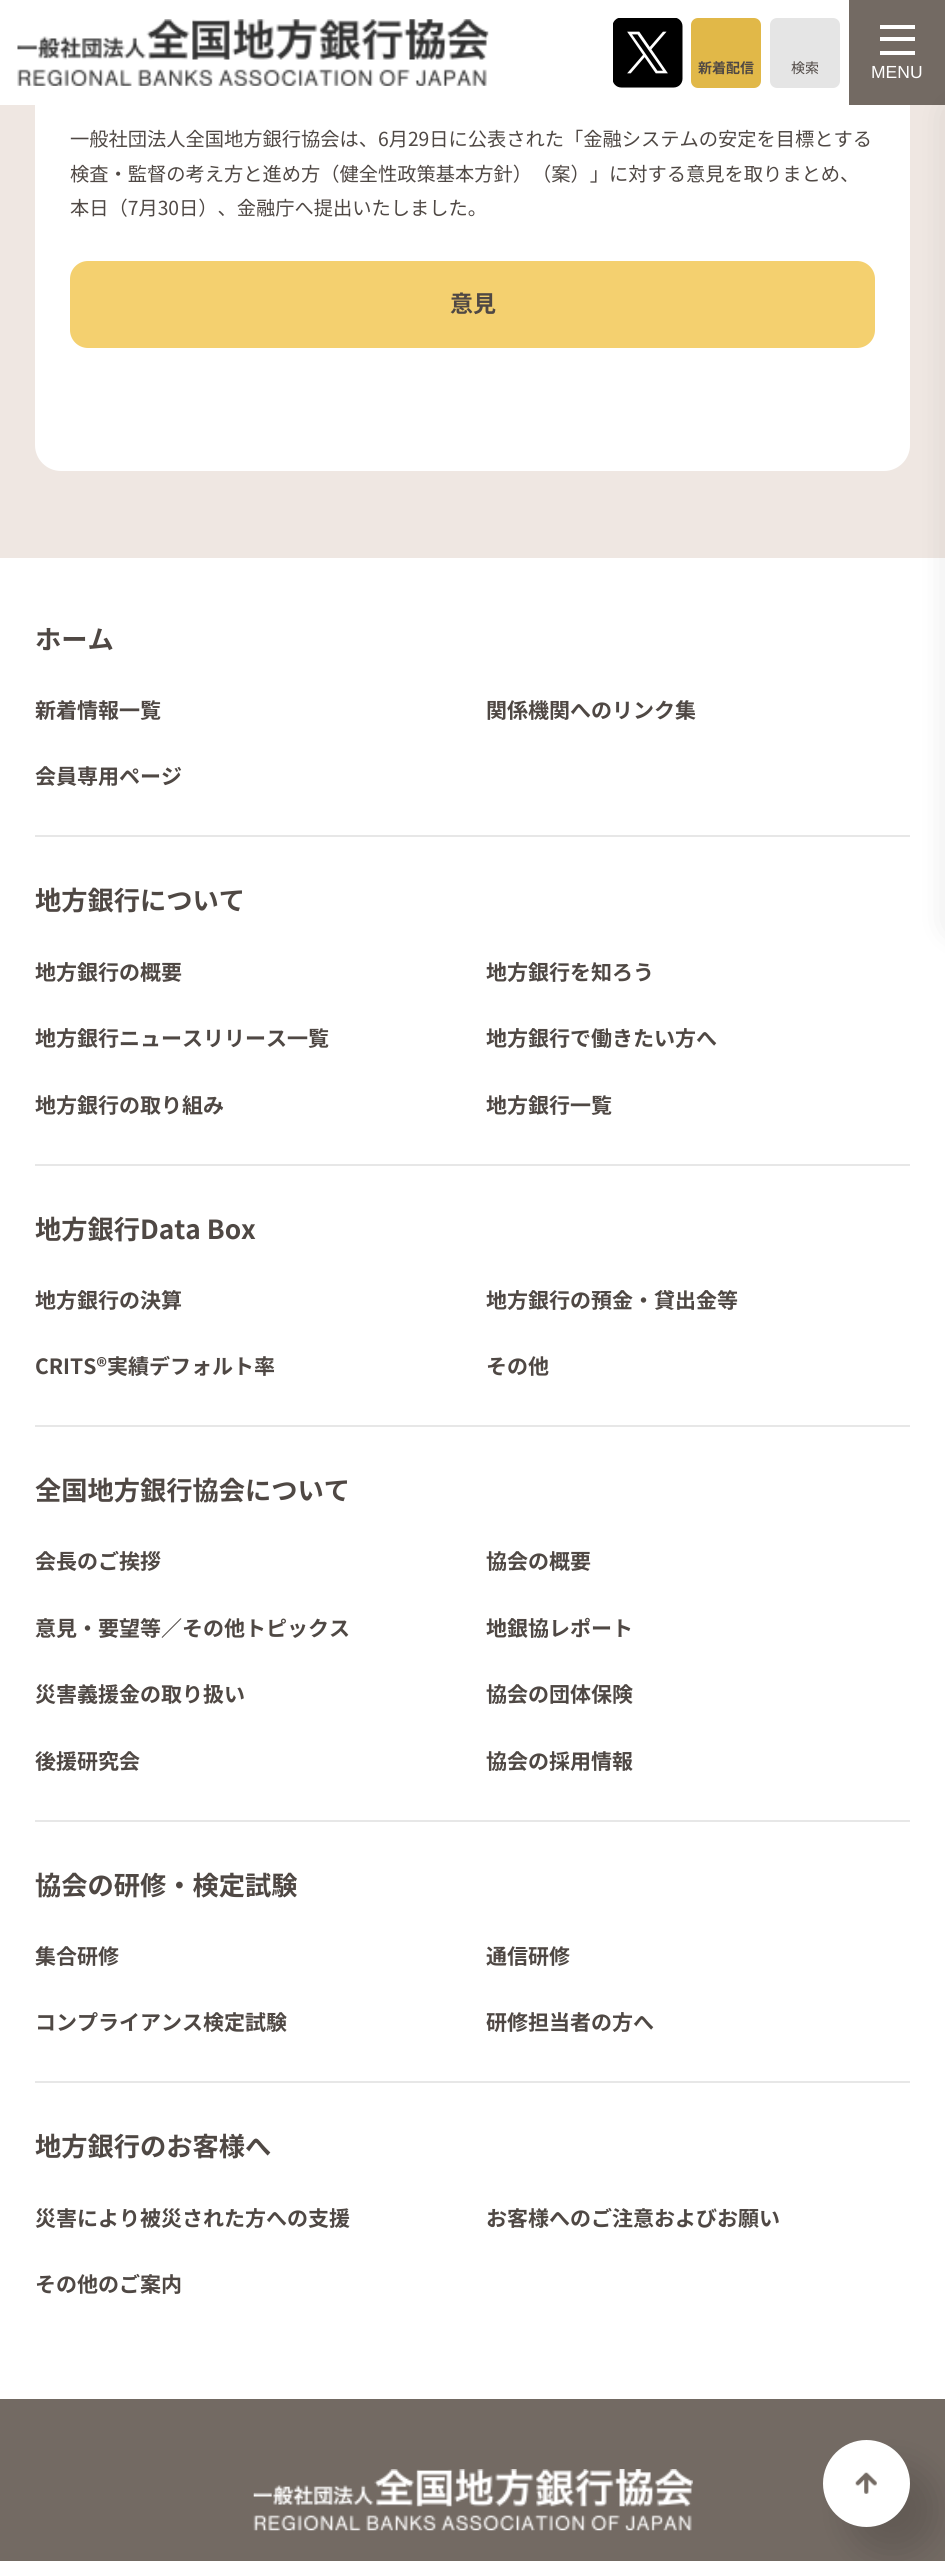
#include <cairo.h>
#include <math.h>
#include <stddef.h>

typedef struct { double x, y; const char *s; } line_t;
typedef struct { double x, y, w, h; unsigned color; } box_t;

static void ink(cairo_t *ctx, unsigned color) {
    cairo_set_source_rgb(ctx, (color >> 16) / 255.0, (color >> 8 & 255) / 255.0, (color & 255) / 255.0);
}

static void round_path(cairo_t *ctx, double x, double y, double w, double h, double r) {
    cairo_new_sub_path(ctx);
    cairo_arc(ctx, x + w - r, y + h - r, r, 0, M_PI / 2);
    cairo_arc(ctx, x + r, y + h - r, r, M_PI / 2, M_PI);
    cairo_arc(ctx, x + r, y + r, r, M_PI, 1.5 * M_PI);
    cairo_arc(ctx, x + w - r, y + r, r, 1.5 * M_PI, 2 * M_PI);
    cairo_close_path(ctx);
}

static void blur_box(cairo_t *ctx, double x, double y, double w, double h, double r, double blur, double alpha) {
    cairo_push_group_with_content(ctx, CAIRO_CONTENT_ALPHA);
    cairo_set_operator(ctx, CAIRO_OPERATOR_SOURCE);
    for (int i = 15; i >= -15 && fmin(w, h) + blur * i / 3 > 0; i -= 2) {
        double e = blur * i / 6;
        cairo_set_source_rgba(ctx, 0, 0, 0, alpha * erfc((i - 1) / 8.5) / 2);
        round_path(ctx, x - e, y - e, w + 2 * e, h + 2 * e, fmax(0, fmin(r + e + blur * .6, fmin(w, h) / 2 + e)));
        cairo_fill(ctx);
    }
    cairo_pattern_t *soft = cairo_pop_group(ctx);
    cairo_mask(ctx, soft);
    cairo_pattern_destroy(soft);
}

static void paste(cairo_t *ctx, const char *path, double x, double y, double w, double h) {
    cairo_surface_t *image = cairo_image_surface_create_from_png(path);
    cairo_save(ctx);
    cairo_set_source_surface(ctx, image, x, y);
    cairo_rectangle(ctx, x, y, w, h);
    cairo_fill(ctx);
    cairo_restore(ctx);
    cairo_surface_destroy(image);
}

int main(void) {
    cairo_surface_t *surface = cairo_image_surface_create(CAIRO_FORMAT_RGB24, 945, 2561);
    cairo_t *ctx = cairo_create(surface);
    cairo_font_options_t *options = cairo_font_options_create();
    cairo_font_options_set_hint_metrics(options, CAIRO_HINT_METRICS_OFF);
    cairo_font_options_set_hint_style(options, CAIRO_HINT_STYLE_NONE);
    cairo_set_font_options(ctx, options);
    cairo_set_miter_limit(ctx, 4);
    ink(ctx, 0xFFFFFF);
    cairo_paint(ctx);
    ink(ctx, 0xEFE7E2);
    cairo_rectangle(ctx, 0, 105, 945, 453);
    cairo_fill(ctx);
    ink(ctx, 0xFFFFFF);
    round_path(ctx, 35, -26, 875, 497, 26);
    cairo_fill(ctx);
    paste(ctx, "media/1.png", 17, 19, 472, 67);
    paste(ctx, "media/2.png", 613, 18, 70, 70);
    ink(ctx, 0xE1B848);
    round_path(ctx, 691, 18, 70, 70, 7);
    cairo_fill(ctx);
    cairo_select_font_face(ctx, "Noto Sans JP", CAIRO_FONT_SLANT_NORMAL, CAIRO_FONT_WEIGHT_BOLD);
    cairo_set_font_size(ctx, 14);
    ink(ctx, 0x4F4844);
    cairo_move_to(ctx, 698, 73);
    cairo_show_text(ctx, "新着配信");
    ink(ctx, 0xE5E5E5);
    round_path(ctx, 770, 18, 70, 70, 7);
    cairo_fill(ctx);
    cairo_select_font_face(ctx, "Noto Sans JP", CAIRO_FONT_SLANT_NORMAL, CAIRO_FONT_WEIGHT_NORMAL);
    ink(ctx, 0x4F4844);
    cairo_move_to(ctx, 791, 73);
    cairo_show_text(ctx, "検索");
    {
        static const box_t items[] = {
            {849, 0, 96, 105, 0x736A63},
            {880, 25, 35, 4, 0xFFFFFF},
            {880, 37, 35, 4, 0xFFFFFF},
            {880, 51, 35, 4, 0xFFFFFF},
        };
        for (size_t i = 0; i < sizeof items / sizeof *items; i++) {
            ink(ctx, items[i].color);
            cairo_rectangle(ctx, items[i].x, items[i].y, items[i].w, items[i].h);
            cairo_fill(ctx);
        }
    }
    cairo_select_font_face(ctx, "Liberation Sans", CAIRO_FONT_SLANT_NORMAL, CAIRO_FONT_WEIGHT_NORMAL);
    cairo_set_font_size(ctx, 17.5);
    cairo_move_to(ctx, 871, 78);
    cairo_show_text(ctx, "MENU");
    ink(ctx, 0xE7E7E7);
    cairo_rectangle(ctx, 35, 835, 875, 2);
    cairo_fill(ctx);
    ink(ctx, 0x000000);
    blur_box(ctx, 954, 112, 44, 814, 0, 17.5, 0.15);
    cairo_select_font_face(ctx, "Noto Sans JP", CAIRO_FONT_SLANT_NORMAL, CAIRO_FONT_WEIGHT_NORMAL);
    cairo_set_font_size(ctx, 19.25);
    ink(ctx, 0x4F4844);
    {
        static const line_t items[] = {
            {70, 146, "一般社団法人全国地方銀行協会は、6月29日に公表された「金融システムの安定を目標とする"},
            {70, 181, "検査・監督の考え方と進め方（健全性政策基本方針）（案）」に対する意見を取りまとめ、"},
            {70, 215, "本日（7月30日）、金融庁へ提出いたしました。"},
        };
        for (size_t i = 0; i < sizeof items / sizeof *items; i++) {
            cairo_move_to(ctx, items[i].x, items[i].y);
            cairo_show_text(ctx, items[i].s);
        }
    }
    ink(ctx, 0xF4D06F);
    round_path(ctx, 70, 261, 805, 87, 18);
    cairo_fill(ctx);
    cairo_select_font_face(ctx, "Noto Sans JP", CAIRO_FONT_SLANT_NORMAL, CAIRO_FONT_WEIGHT_BOLD);
    cairo_set_font_size(ctx, 23);
    ink(ctx, 0x4F4844);
    cairo_move_to(ctx, 450, 312);
    cairo_show_text(ctx, "意見");
    cairo_set_font_size(ctx, 26.25);
    cairo_move_to(ctx, 35, 649);
    cairo_show_text(ctx, "ホーム");
    cairo_set_font_size(ctx, 21);
    {
        static const line_t items[] = {
            {35, 718, "新着情報一覧"},
            {486, 718, "関係機関へのリンク集"},
            {35, 784, "会員専用ページ"},
        };
        for (size_t i = 0; i < sizeof items / sizeof *items; i++) {
            cairo_move_to(ctx, items[i].x, items[i].y);
            cairo_show_text(ctx, items[i].s);
        }
    }
    ink(ctx, 0xE7E7E7);
    cairo_rectangle(ctx, 35, 1164, 875, 2);
    cairo_fill(ctx);
    cairo_set_font_size(ctx, 26.25);
    ink(ctx, 0x4F4844);
    cairo_move_to(ctx, 35, 910);
    cairo_show_text(ctx, "地方銀行について");
    cairo_set_font_size(ctx, 21);
    {
        static const line_t items[] = {
            {35, 980, "地方銀行の概要"},
            {486, 980, "地方銀行を知ろう"},
            {35, 1046, "地方銀行ニュースリリース一覧"},
            {486, 1046, "地方銀行で働きたい方へ"},
            {35, 1113, "地方銀行の取り組み"},
            {486, 1113, "地方銀行一覧"},
        };
        for (size_t i = 0; i < sizeof items / sizeof *items; i++) {
            cairo_move_to(ctx, items[i].x, items[i].y);
            cairo_show_text(ctx, items[i].s);
        }
    }
    ink(ctx, 0xE7E7E7);
    cairo_rectangle(ctx, 35, 1425, 875, 2);
    cairo_fill(ctx);
    cairo_set_font_size(ctx, 26.25);
    ink(ctx, 0x4F4844);
    cairo_move_to(ctx, 35, 1239);
    cairo_show_text(ctx, "地方銀行Data Box");
    cairo_set_font_size(ctx, 21);
    {
        static const line_t items[] = {
            {35, 1308, "地方銀行の決算"},
            {486, 1308, "地方銀行の預金・貸出金等"},
            {35, 1374, "CRITS®実績デフォルト率"},
            {486, 1374, "その他"},
        };
        for (size_t i = 0; i < sizeof items / sizeof *items; i++) {
            cairo_move_to(ctx, items[i].x, items[i].y);
            cairo_show_text(ctx, items[i].s);
        }
    }
    ink(ctx, 0xE7E7E7);
    cairo_rectangle(ctx, 35, 1820, 875, 2);
    cairo_fill(ctx);
    cairo_set_font_size(ctx, 26.25);
    ink(ctx, 0x4F4844);
    cairo_move_to(ctx, 35, 1500);
    cairo_show_text(ctx, "全国地方銀行協会について");
    cairo_set_font_size(ctx, 21);
    {
        static const line_t items[] = {
            {35, 1569, "会長のご挨拶"},
            {486, 1569, "協会の概要"},
            {35, 1636, "意見・要望等／その他トピックス"},
            {486, 1636, "地銀協レポート"},
            {35, 1702, "災害義援金の取り扱い"},
            {486, 1702, "協会の団体保険"},
            {35, 1769, "後援研究会"},
            {486, 1769, "協会の採用情報"},
        };
        for (size_t i = 0; i < sizeof items / sizeof *items; i++) {
            cairo_move_to(ctx, items[i].x, items[i].y);
            cairo_show_text(ctx, items[i].s);
        }
    }
    ink(ctx, 0xE7E7E7);
    cairo_rectangle(ctx, 35, 2081, 875, 2);
    cairo_fill(ctx);
    cairo_set_font_size(ctx, 26.25);
    ink(ctx, 0x4F4844);
    cairo_move_to(ctx, 35, 1895);
    cairo_show_text(ctx, "協会の研修・検定試験");
    cairo_set_font_size(ctx, 21);
    {
        static const line_t items[] = {
            {35, 1964, "集合研修"},
            {486, 1964, "通信研修"},
            {35, 2030, "コンプライアンス検定試験"},
            {486, 2030, "研修担当者の方へ"},
        };
        for (size_t i = 0; i < sizeof items / sizeof *items; i++) {
            cairo_move_to(ctx, items[i].x, items[i].y);
            cairo_show_text(ctx, items[i].s);
        }
    }
    cairo_set_font_size(ctx, 26.25);
    cairo_move_to(ctx, 35, 2156);
    cairo_show_text(ctx, "地方銀行のお客様へ");
    cairo_set_font_size(ctx, 21);
    {
        static const line_t items[] = {
            {35, 2226, "災害により被災された方への支援"},
            {486, 2226, "お客様へのご注意およびお願い"},
            {35, 2292, "その他のご案内"},
        };
        for (size_t i = 0; i < sizeof items / sizeof *items; i++) {
            cairo_move_to(ctx, items[i].x, items[i].y);
            cairo_show_text(ctx, items[i].s);
        }
    }
    ink(ctx, 0x736A63);
    cairo_rectangle(ctx, 0, 2399, 945, 162);
    cairo_fill(ctx);
    paste(ctx, "media/3.png", 253, 2469, 440, 62);
    ink(ctx, 0x000000);
    blur_box(ctx, 849, 2466, 87, 87, 43.5, 17.5, 0.15);
    ink(ctx, 0xFFFFFF);
    cairo_arc(ctx, 866.5, 2483.5, 43.5, 0, 2 * M_PI);
    cairo_fill(ctx);
    paste(ctx, "media/4.png", 855, 2472, 22, 22);
    cairo_surface_write_to_png(surface, "image.png");
    cairo_font_options_destroy(options);
    cairo_destroy(ctx);
    cairo_surface_destroy(surface);
    return 0;
}
